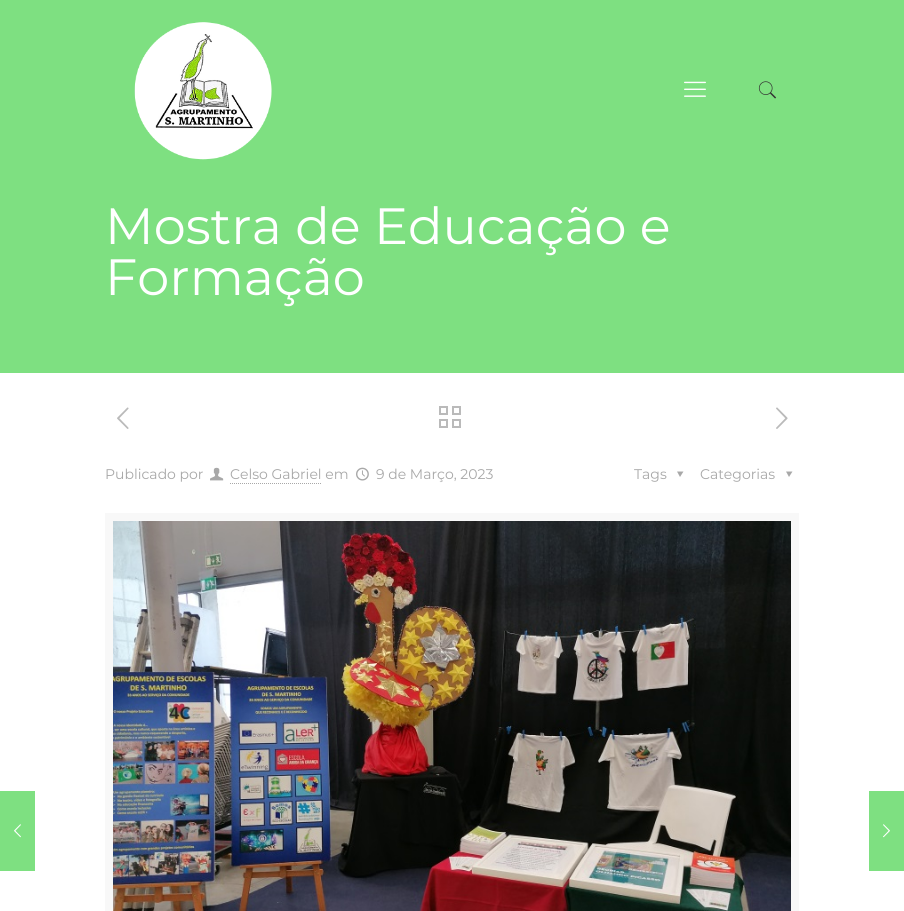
#include <cairo.h>
#include <math.h>
#include <stddef.h>


static void ink(cairo_t *ctx, unsigned color) {
    cairo_set_source_rgb(ctx, (color >> 16) / 255.0, (color >> 8 & 255) / 255.0, (color & 255) / 255.0);
}

static void paste(cairo_t *ctx, const char *path, double x, double y, double w, double h) {
    cairo_surface_t *image = cairo_image_surface_create_from_png(path);
    cairo_save(ctx);
    cairo_set_source_surface(ctx, image, x, y);
    cairo_rectangle(ctx, x, y, w, h);
    cairo_fill(ctx);
    cairo_restore(ctx);
    cairo_surface_destroy(image);
}

int main(void) {
    cairo_surface_t *surface = cairo_image_surface_create(CAIRO_FORMAT_RGB24, 904, 911);
    cairo_t *ctx = cairo_create(surface);
    cairo_font_options_t *options = cairo_font_options_create();
    cairo_font_options_set_hint_metrics(options, CAIRO_HINT_METRICS_OFF);
    cairo_font_options_set_hint_style(options, CAIRO_HINT_STYLE_NONE);
    cairo_set_font_options(ctx, options);
    cairo_set_miter_limit(ctx, 4);
    ink(ctx, 0xFFFFFF);
    cairo_paint(ctx);
    ink(ctx, 0x7EE081);
    cairo_rectangle(ctx, 0, 0, 904, 373);
    cairo_fill(ctx);
    paste(ctx, "media/1.png", 134, 22, 138, 138);
    paste(ctx, "media/2.png", 684, 81, 22, 16);
    paste(ctx, "media/3.png", 758, 81, 19, 18);
    cairo_select_font_face(ctx, "Montserrat", CAIRO_FONT_SLANT_NORMAL, CAIRO_FONT_WEIGHT_NORMAL);
    cairo_set_font_size(ctx, 51);
    ink(ctx, 0xFFFFFF);
    cairo_move_to(ctx, 105, 244);
    cairo_show_text(ctx, "Mostra de Educação e");
    cairo_move_to(ctx, 105, 295);
    cairo_show_text(ctx, "Formação");
    paste(ctx, "media/4.png", 117, 407, 12, 22);
    paste(ctx, "media/5.png", 439, 406, 22, 22);
    paste(ctx, "media/6.png", 776, 407, 12, 22);
    cairo_set_font_size(ctx, 14);
    ink(ctx, 0xA8A8A8);
    cairo_move_to(ctx, 105, 479);
    cairo_show_text(ctx, "Publicado por");
    paste(ctx, "media/7.png", 210, 467, 14, 14);
    cairo_move_to(ctx, 230, 479);
    cairo_show_text(ctx, "Celso Gabriel em");
    cairo_new_path(ctx);
    cairo_move_to(ctx, 230, 483.5);
    cairo_line_to(ctx, 322, 483.5);
    cairo_set_line_width(ctx, 1);
    cairo_set_dash(ctx, (double[]){1, 1}, 2, 0);
    cairo_stroke(ctx);
    paste(ctx, "media/8.png", 356, 467, 13, 14);
    cairo_move_to(ctx, 376, 479);
    cairo_show_text(ctx, "9 de Março, 2023");
    cairo_move_to(ctx, 634, 479);
    cairo_show_text(ctx, "Tags");
    cairo_new_path(ctx);
    cairo_move_to(ctx, 683.5, 471.5);
    cairo_line_to(ctx, 680, 477);
    cairo_line_to(ctx, 677, 471.5);
    cairo_close_path(ctx);
    cairo_fill(ctx);
    cairo_move_to(ctx, 700, 479);
    cairo_show_text(ctx, "Categorias");
    cairo_new_path(ctx);
    cairo_move_to(ctx, 792.5, 471.5);
    cairo_line_to(ctx, 789, 477);
    cairo_line_to(ctx, 786, 471.5);
    cairo_close_path(ctx);
    cairo_fill(ctx);
    cairo_rectangle(ctx, 109, 517, 686, 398);
    ink(ctx, 0xF8F8F8);
    cairo_set_line_width(ctx, 8);
    cairo_set_dash(ctx, NULL, 0, 0);
    cairo_stroke(ctx);
    paste(ctx, "media/9.png", 113, 521, 678, 390);
    ink(ctx, 0x7EE081);
    cairo_rectangle(ctx, 0, 791, 35, 80);
    cairo_fill(ctx);
    paste(ctx, "media/10.png", 14, 824, 7, 14);
    cairo_rectangle(ctx, 869, 791, 35, 80);
    cairo_fill(ctx);
    paste(ctx, "media/11.png", 883, 824, 7, 14);
    cairo_surface_write_to_png(surface, "image.png");
    cairo_font_options_destroy(options);
    cairo_destroy(ctx);
    cairo_surface_destroy(surface);
    return 0;
}
